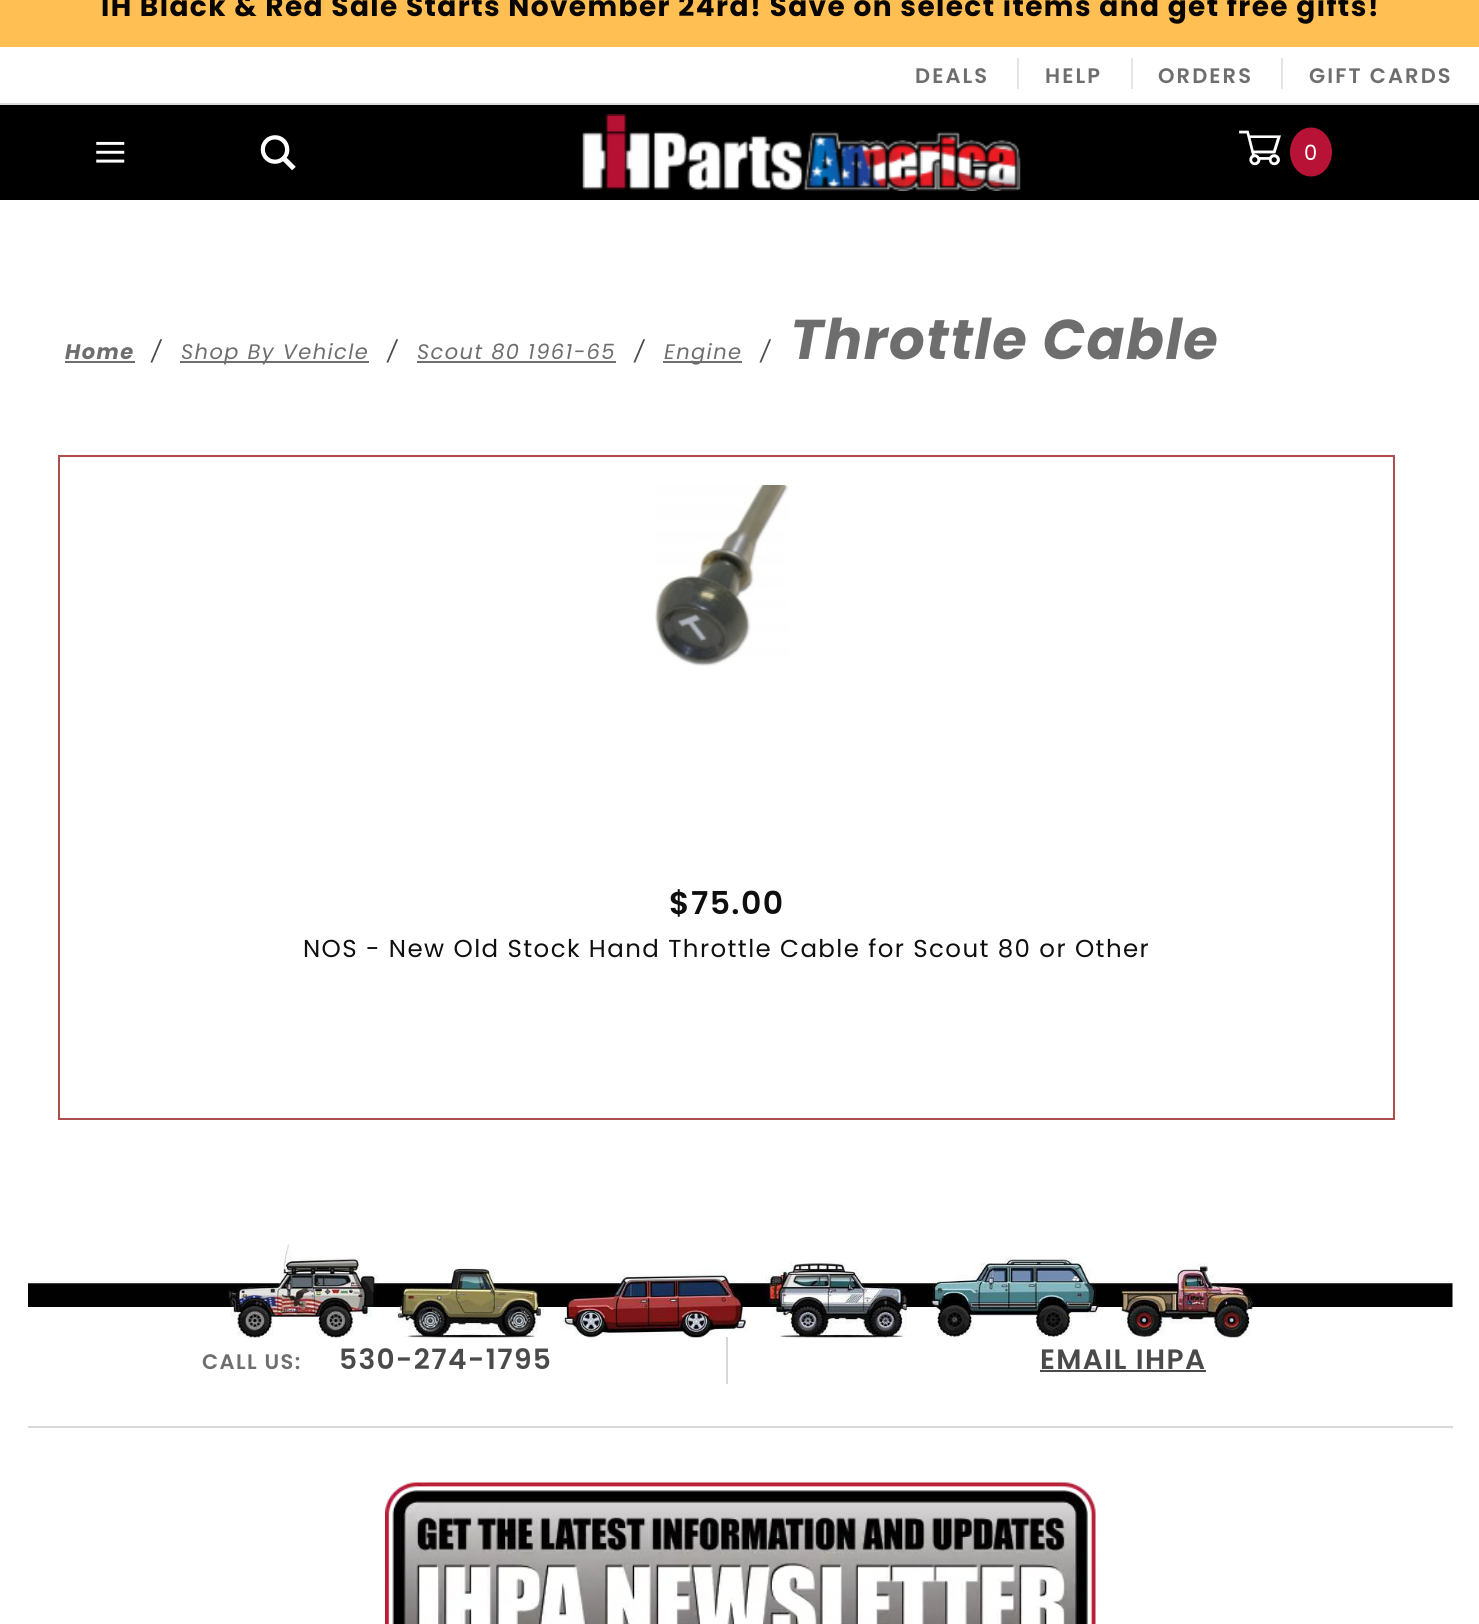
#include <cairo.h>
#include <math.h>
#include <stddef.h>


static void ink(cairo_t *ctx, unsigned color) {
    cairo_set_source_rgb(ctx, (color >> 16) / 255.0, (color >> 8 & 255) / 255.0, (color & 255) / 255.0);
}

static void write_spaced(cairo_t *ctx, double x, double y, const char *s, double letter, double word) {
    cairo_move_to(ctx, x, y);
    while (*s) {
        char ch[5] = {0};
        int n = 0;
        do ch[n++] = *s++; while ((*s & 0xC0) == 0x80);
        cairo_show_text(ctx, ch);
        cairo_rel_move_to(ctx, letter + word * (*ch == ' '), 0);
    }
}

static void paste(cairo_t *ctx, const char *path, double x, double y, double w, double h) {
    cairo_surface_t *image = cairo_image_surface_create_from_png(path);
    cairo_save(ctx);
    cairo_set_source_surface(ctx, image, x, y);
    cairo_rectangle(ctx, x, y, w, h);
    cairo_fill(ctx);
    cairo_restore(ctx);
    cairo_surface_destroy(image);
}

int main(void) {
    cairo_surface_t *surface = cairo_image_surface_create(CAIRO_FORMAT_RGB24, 1479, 1624);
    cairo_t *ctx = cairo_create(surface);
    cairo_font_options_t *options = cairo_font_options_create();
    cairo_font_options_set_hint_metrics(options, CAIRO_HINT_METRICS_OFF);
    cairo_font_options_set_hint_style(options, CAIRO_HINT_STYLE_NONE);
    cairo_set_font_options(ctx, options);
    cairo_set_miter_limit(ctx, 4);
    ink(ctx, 0xFFFFFF);
    cairo_paint(ctx);
    ink(ctx, 0xFFBF52);
    cairo_rectangle(ctx, 0, 0, 1479, 47);
    cairo_fill(ctx);
    cairo_select_font_face(ctx, "Poppins", CAIRO_FONT_SLANT_NORMAL, CAIRO_FONT_WEIGHT_BOLD);
    cairo_set_font_size(ctx, 28);
    ink(ctx, 0x080500);
    write_spaced(ctx, 101, 16, "IH Black & Red Sale Starts November 24rd! Save on select items and get free gifts!", 1.4, 0);
    ink(ctx, 0xDCDCDC);
    cairo_rectangle(ctx, 0, 103, 1479, 2);
    cairo_fill(ctx);
    cairo_select_font_face(ctx, "Poppins SemiBold", CAIRO_FONT_SLANT_NORMAL, CAIRO_FONT_WEIGHT_NORMAL);
    cairo_set_font_size(ctx, 21);
    ink(ctx, 0x6E6E6E);
    write_spaced(ctx, 915, 83, "DEALS", 2.1, 0);
    ink(ctx, 0xE5E5E5);
    cairo_rectangle(ctx, 1017, 58, 2, 31);
    cairo_fill(ctx);
    ink(ctx, 0x6E6E6E);
    write_spaced(ctx, 1045, 83, "HELP", 2.1, 0);
    ink(ctx, 0xE5E5E5);
    cairo_rectangle(ctx, 1131, 58, 2, 31);
    cairo_fill(ctx);
    ink(ctx, 0x6E6E6E);
    write_spaced(ctx, 1158, 83, "ORDERS", 2.1, 0);
    ink(ctx, 0xE5E5E5);
    cairo_rectangle(ctx, 1281, 58, 2, 31);
    cairo_fill(ctx);
    ink(ctx, 0x6E6E6E);
    write_spaced(ctx, 1309, 83, "GIFT CARDS", 2.1, 0);
    ink(ctx, 0x000000);
    cairo_rectangle(ctx, 0, 105, 1479, 95);
    cairo_fill(ctx);
    paste(ctx, "media/1.png", 96, 141, 29, 22);
    paste(ctx, "media/2.png", 260, 135, 36, 36);
    paste(ctx, "media/3.png", 582, 114, 439, 77);
    paste(ctx, "media/4.png", 1239, 130, 42, 36);
    ink(ctx, 0xB81336);
    cairo_new_path(ctx);
    cairo_move_to(ctx, 1311, 127.5);
    cairo_curve_to(ctx, 1322.5, 127.5, 1332, 138.5, 1332, 152);
    cairo_curve_to(ctx, 1332, 165.5, 1322.5, 176.5, 1311, 176.5);
    cairo_curve_to(ctx, 1299.5, 176.5, 1290, 165.5, 1290, 152);
    cairo_curve_to(ctx, 1290, 138.5, 1299.5, 127.5, 1311, 127.5);
    cairo_close_path(ctx);
    cairo_fill(ctx);
    cairo_select_font_face(ctx, "Poppins", CAIRO_FONT_SLANT_NORMAL, CAIRO_FONT_WEIGHT_NORMAL);
    ink(ctx, 0xFFFFFF);
    write_spaced(ctx, 1304, 160, "0", 1.4, 0);
    cairo_select_font_face(ctx, "Poppins", CAIRO_FONT_SLANT_ITALIC, CAIRO_FONT_WEIGHT_BOLD);
    ink(ctx, 0x6E6E6E);
    write_spaced(ctx, 65, 359, "Home", 1.4, 0);
    cairo_rectangle(ctx, 65, 361, 70, 2);
    cairo_fill(ctx);
    cairo_select_font_face(ctx, "Poppins", CAIRO_FONT_SLANT_ITALIC, CAIRO_FONT_WEIGHT_NORMAL);
    ink(ctx, 0x4A4A4A);
    write_spaced(ctx, 151, 359, "/", 1.4, 0);
    ink(ctx, 0x6E6E6E);
    cairo_rectangle(ctx, 180, 361, 189, 2);
    cairo_fill(ctx);
    write_spaced(ctx, 181, 359, "Shop By Vehicle", 1.4, 0);
    ink(ctx, 0x4A4A4A);
    write_spaced(ctx, 387, 359, "/", 1.4, 0);
    ink(ctx, 0x6E6E6E);
    write_spaced(ctx, 417, 359, "Scout 80 1961-65", 1.4, 0);
    cairo_rectangle(ctx, 417, 361, 199, 2);
    cairo_fill(ctx);
    ink(ctx, 0x4A4A4A);
    write_spaced(ctx, 634, 359, "/", 1.4, 0);
    ink(ctx, 0x6E6E6E);
    cairo_rectangle(ctx, 663, 361, 79, 2);
    cairo_fill(ctx);
    write_spaced(ctx, 664, 359, "Engine", 1.4, 0);
    ink(ctx, 0x4A4A4A);
    write_spaced(ctx, 760, 359, "/", 1.4, 0);
    cairo_select_font_face(ctx, "Poppins", CAIRO_FONT_SLANT_ITALIC, CAIRO_FONT_WEIGHT_BOLD);
    cairo_set_font_size(ctx, 56);
    ink(ctx, 0x6E6E6E);
    write_spaced(ctx, 790, 359, "Throttle Cable", 1.4, 0);
    cairo_rectangle(ctx, 59, 456, 1335, 663);
    ink(ctx, 0xAE4D4D);
    cairo_stroke(ctx);
    paste(ctx, "media/5.png", 655, 485, 134, 181);
    cairo_select_font_face(ctx, "Poppins SemiBold", CAIRO_FONT_SLANT_NORMAL, CAIRO_FONT_WEIGHT_NORMAL);
    cairo_set_font_size(ctx, 31.5);
    ink(ctx, 0x0F0F0F);
    write_spaced(ctx, 669, 914, "$75.00", 1.4, 0);
    cairo_select_font_face(ctx, "Poppins", CAIRO_FONT_SLANT_NORMAL, CAIRO_FONT_WEIGHT_NORMAL);
    cairo_set_font_size(ctx, 24.5);
    write_spaced(ctx, 303, 957, "NOS - New Old Stock Hand Throttle Cable for Scout 80 or Other", 1.4, 0);
    paste(ctx, "media/6.png", 28, 1244, 1425, 94);
    cairo_select_font_face(ctx, "Poppins SemiBold", CAIRO_FONT_SLANT_NORMAL, CAIRO_FONT_WEIGHT_NORMAL);
    cairo_set_font_size(ctx, 21);
    ink(ctx, 0x6E6E6E);
    write_spaced(ctx, 202, 1369, "CALL US:", 1.4, 0);
    cairo_set_font_size(ctx, 28);
    ink(ctx, 0x4A4A4A);
    write_spaced(ctx, 339, 1369, "530-274-1795", 1.4, 0);
    ink(ctx, 0xD8D8D8);
    cairo_rectangle(ctx, 726, 1337, 2, 47);
    cairo_fill(ctx);
    ink(ctx, 0x4A4A4A);
    write_spaced(ctx, 1040, 1369, "EMAIL IHPA", 1.4, 0);
    cairo_rectangle(ctx, 1040, 1370, 166, 2);
    cairo_fill(ctx);
    ink(ctx, 0xD8D8D8);
    cairo_rectangle(ctx, 28, 1426, 1425, 2);
    cairo_fill(ctx);
    paste(ctx, "media/7.png", 385, 1482, 711, 142);
    cairo_surface_write_to_png(surface, "image.png");
    cairo_font_options_destroy(options);
    cairo_destroy(ctx);
    cairo_surface_destroy(surface);
    return 0;
}
